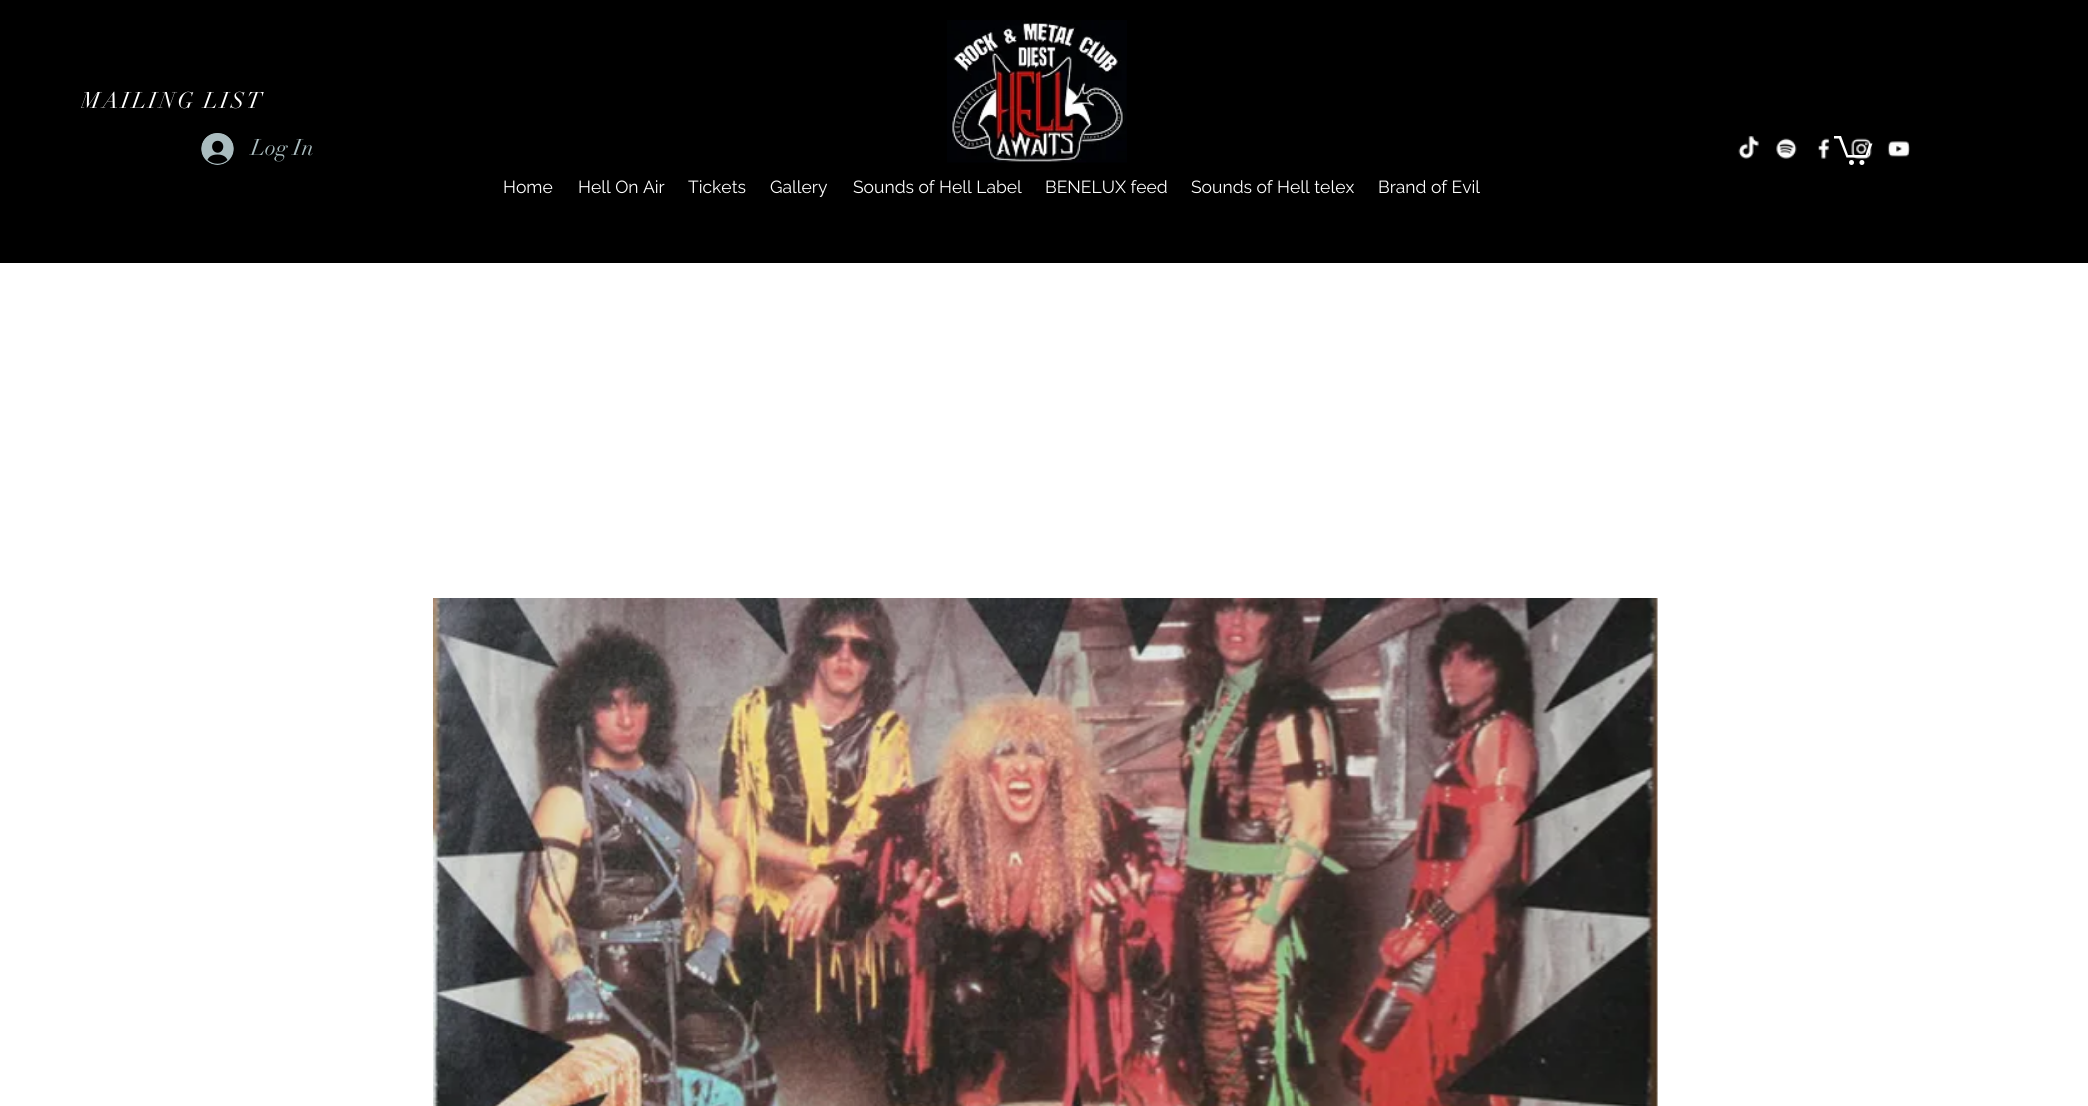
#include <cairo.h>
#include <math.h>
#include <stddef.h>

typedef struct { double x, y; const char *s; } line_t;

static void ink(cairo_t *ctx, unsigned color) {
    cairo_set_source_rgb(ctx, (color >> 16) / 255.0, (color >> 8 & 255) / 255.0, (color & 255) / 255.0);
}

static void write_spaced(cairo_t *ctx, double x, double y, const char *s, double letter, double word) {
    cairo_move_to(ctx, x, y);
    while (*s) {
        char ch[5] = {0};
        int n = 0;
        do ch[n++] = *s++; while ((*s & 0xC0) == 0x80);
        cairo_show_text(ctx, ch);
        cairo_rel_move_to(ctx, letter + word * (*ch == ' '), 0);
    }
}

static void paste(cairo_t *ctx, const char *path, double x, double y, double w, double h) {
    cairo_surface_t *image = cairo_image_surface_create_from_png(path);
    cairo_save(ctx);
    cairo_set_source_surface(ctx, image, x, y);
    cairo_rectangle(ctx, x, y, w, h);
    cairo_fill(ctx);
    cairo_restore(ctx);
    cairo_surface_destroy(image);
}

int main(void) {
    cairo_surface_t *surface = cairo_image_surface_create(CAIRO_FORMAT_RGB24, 2088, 1106);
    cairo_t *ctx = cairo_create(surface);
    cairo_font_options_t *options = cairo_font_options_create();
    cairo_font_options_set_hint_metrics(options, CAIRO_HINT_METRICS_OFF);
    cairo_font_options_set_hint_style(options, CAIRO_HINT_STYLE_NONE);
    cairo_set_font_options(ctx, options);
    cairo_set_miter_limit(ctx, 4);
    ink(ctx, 0x000000);
    cairo_paint(ctx);
    cairo_save(ctx);
    cairo_rectangle(ctx, 81, 86, 183, 28);
    cairo_clip(ctx);
    cairo_select_font_face(ctx, "didot", CAIRO_FONT_SLANT_NORMAL, CAIRO_FONT_WEIGHT_NORMAL);
    cairo_set_font_size(ctx, 22.5);
    ink(ctx, 0xFFFFFF);
    write_spaced(ctx, 81, 108, "MAILING LIST", 2.25, 0);
    cairo_restore(ctx);
    paste(ctx, "media/1.png", 1738, 136, 21, 23);
    paste(ctx, "media/2.png", 1776, 138, 21, 21);
    paste(ctx, "media/3.png", 1818, 138, 12, 21);
    paste(ctx, "media/4.png", 1851, 138, 21, 21);
    paste(ctx, "media/5.png", 1887, 141, 23, 16);
    paste(ctx, "media/6.png", 947, 20, 180, 143);
    paste(ctx, "media/7.png", 201, 133, 33, 32);
    cairo_select_font_face(ctx, "didot", CAIRO_FONT_SLANT_NORMAL, CAIRO_FONT_WEIGHT_NORMAL);
    cairo_set_font_size(ctx, 22.5);
    ink(ctx, 0xAABCBF);
    cairo_move_to(ctx, 251, 155);
    cairo_show_text(ctx, "Log In");
    ink(ctx, 0xFFFFFF);
    cairo_new_path(ctx);
    cairo_move_to(ctx, 1872.5, 143.5);
    cairo_line_to(ctx, 1867, 157.5);
    cairo_line_to(ctx, 1846.5, 157.5);
    cairo_line_to(ctx, 1839, 138.5);
    cairo_line_to(ctx, 1834, 138.5);
    cairo_line_to(ctx, 1834, 136);
    cairo_line_to(ctx, 1841, 136);
    cairo_line_to(ctx, 1848, 155);
    cairo_line_to(ctx, 1865.5, 155);
    cairo_line_to(ctx, 1869.5, 143.5);
    cairo_fill(ctx);
    cairo_arc(ctx, 1861.9, 162.5, 2.5, 0, 2 * M_PI);
    cairo_fill(ctx);
    cairo_arc(ctx, 1851.5, 162.5, 2.5, 0, 2 * M_PI);
    cairo_fill(ctx);
    cairo_select_font_face(ctx, "Raleway", CAIRO_FONT_SLANT_NORMAL, CAIRO_FONT_WEIGHT_NORMAL);
    cairo_set_font_size(ctx, 17.5);
    {
        static const line_t items[] = {
            {503, 193, "Home"},
            {578, 193, "Hell On Air"},
            {688, 193, "Tickets"},
            {770, 193, "Gallery"},
            {853, 193, "Sounds of Hell Label"},
            {1045, 193, "BENELUX feed"},
            {1191, 193, "Sounds of Hell telex"},
            {1378, 193, "Brand of Evil"},
        };
        for (size_t i = 0; i < sizeof items / sizeof *items; i++) {
            cairo_move_to(ctx, items[i].x, items[i].y);
            cairo_show_text(ctx, items[i].s);
        }
    }
    cairo_rectangle(ctx, 0, 263, 2088, 843);
    cairo_fill(ctx);
    paste(ctx, "media/8.png", 433, 598, 1225, 508);
    cairo_surface_write_to_png(surface, "image.png");
    cairo_font_options_destroy(options);
    cairo_destroy(ctx);
    cairo_surface_destroy(surface);
    return 0;
}
